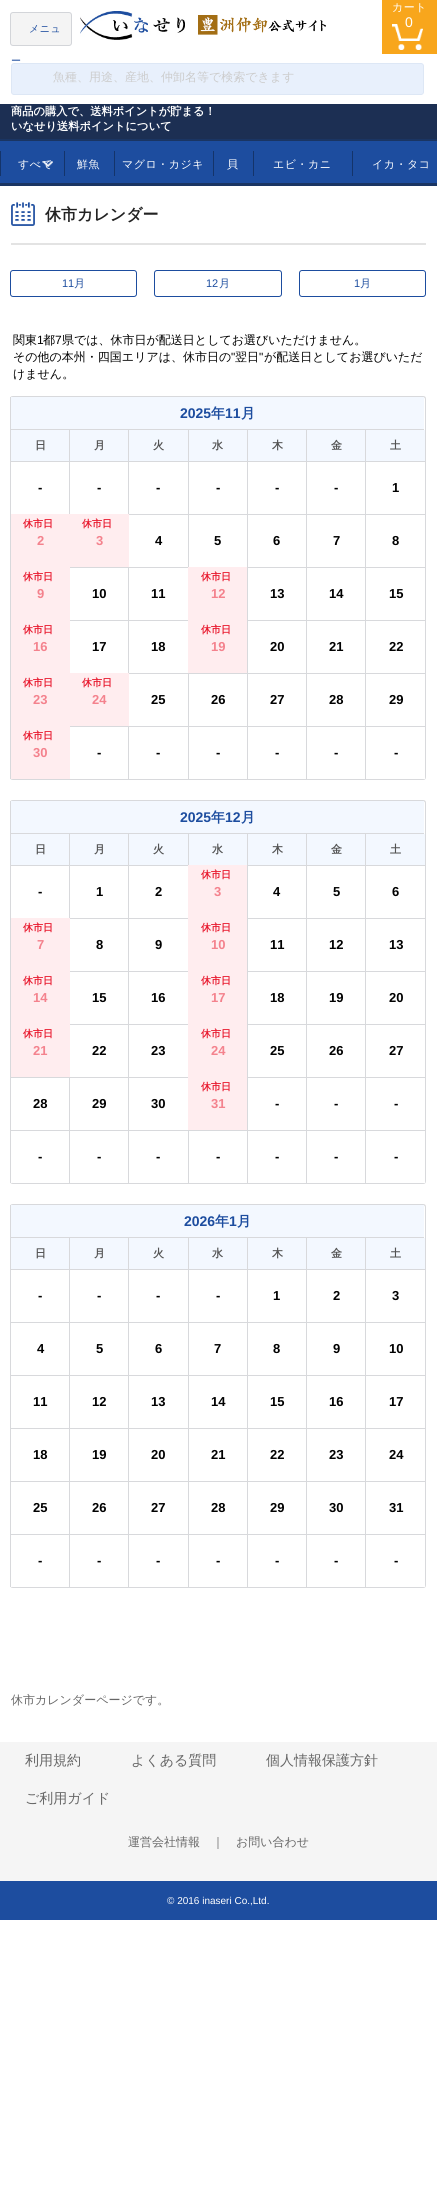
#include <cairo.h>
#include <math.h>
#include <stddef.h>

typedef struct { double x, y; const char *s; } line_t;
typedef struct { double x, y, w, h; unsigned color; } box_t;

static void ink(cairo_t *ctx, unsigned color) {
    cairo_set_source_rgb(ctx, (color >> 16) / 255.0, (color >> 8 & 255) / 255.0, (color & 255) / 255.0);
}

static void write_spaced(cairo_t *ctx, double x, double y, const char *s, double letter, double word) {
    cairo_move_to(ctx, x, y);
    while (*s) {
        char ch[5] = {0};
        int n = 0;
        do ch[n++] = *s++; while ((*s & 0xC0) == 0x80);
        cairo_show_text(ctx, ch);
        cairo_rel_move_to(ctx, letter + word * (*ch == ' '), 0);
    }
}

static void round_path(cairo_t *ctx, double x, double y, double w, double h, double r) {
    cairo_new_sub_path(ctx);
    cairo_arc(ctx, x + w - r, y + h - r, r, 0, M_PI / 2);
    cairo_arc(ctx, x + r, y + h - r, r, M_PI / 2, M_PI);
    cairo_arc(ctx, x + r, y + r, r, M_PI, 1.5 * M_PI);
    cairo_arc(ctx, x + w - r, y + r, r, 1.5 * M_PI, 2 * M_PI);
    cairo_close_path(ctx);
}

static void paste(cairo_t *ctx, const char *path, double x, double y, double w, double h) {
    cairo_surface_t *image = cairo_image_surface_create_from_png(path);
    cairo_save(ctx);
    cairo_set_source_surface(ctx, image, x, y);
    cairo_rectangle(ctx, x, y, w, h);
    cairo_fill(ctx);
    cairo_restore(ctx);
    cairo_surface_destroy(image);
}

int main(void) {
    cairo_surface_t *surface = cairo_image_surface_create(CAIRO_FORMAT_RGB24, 437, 2209);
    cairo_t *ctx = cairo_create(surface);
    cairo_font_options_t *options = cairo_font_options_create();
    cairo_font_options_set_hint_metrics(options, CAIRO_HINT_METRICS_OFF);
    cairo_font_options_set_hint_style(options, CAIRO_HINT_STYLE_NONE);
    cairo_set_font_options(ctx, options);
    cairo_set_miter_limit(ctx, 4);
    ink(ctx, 0xFFFFFF);
    cairo_paint(ctx);
    ink(ctx, 0xF8A61C);
    cairo_rectangle(ctx, 382, 0, 55, 54);
    cairo_fill(ctx);
    paste(ctx, "media/1.png", 392, 24, 31, 26);
    cairo_select_font_face(ctx, "WenQuanYi Zen Hei Medium", CAIRO_FONT_SLANT_NORMAL, CAIRO_FONT_WEIGHT_NORMAL);
    cairo_set_font_size(ctx, 11);
    ink(ctx, 0xFFFFFF);
    write_spaced(ctx, 392, 11, "カート", 0.5, 0);
    cairo_select_font_face(ctx, "Liberation Sans", CAIRO_FONT_SLANT_NORMAL, CAIRO_FONT_WEIGHT_NORMAL);
    cairo_set_font_size(ctx, 14);
    write_spaced(ctx, 405, 27, "0", 0.5, 0);
    ink(ctx, 0xF4F4F4);
    round_path(ctx, 10.5, 12.5, 61, 33, 2.5);
    cairo_fill_preserve(ctx);
    ink(ctx, 0xD3D5D9);
    cairo_set_line_width(ctx, 1);
    cairo_stroke(ctx);
    cairo_select_font_face(ctx, "WenQuanYi Zen Hei Medium", CAIRO_FONT_SLANT_NORMAL, CAIRO_FONT_WEIGHT_NORMAL);
    cairo_set_font_size(ctx, 10);
    ink(ctx, 0x1D4D9F);
    write_spaced(ctx, 29, 32, "メニュ", 0.5, 0);
    write_spaced(ctx, 11, 64, "ー", 0.5, 0);
    paste(ctx, "media/2.png", 80, 11, 105, 29);
    paste(ctx, "media/3.png", 198, 15, 128, 20);
    ink(ctx, 0xE8F0FC);
    round_path(ctx, 11.5, 63.5, 412, 31, 2.5);
    cairo_fill_preserve(ctx);
    ink(ctx, 0xDDE7F5);
    cairo_stroke(ctx);
    cairo_set_font_size(ctx, 12);
    ink(ctx, 0xCCCCCC);
    cairo_move_to(ctx, 53, 81);
    cairo_show_text(ctx, "魚種、用途、産地、仲卸名等で検索できます");
    ink(ctx, 0x1C2F53);
    cairo_rectangle(ctx, 0, 104, 437, 35);
    cairo_fill(ctx);
    ink(ctx, 0x1A3563);
    cairo_rectangle(ctx, 0, 139, 437, 2);
    cairo_fill(ctx);
    cairo_select_font_face(ctx, "WenQuanYi Zen Hei", CAIRO_FONT_SLANT_NORMAL, CAIRO_FONT_WEIGHT_BOLD);
    cairo_set_font_size(ctx, 11.25);
    ink(ctx, 0xFFFFFF);
    cairo_move_to(ctx, 11, 115);
    cairo_show_text(ctx, "商品の購入で、送料ポイントが貯まる！");
    cairo_move_to(ctx, 11, 130);
    cairo_show_text(ctx, "いなせり送料ポイントについて");
    ink(ctx, 0x1D4D9F);
    cairo_rectangle(ctx, 0, 141, 437, 42);
    cairo_fill(ctx);
    ink(ctx, 0x1A3563);
    cairo_rectangle(ctx, 0, 183, 437, 3);
    cairo_fill(ctx);
    paste(ctx, "media/4.png", 43, 161, 10, 6);
    ink(ctx, 0x14346A);
    cairo_rectangle(ctx, 0, 151, 1, 25);
    cairo_fill(ctx);
    cairo_select_font_face(ctx, "WenQuanYi Zen Hei Medium", CAIRO_FONT_SLANT_NORMAL, CAIRO_FONT_WEIGHT_NORMAL);
    cairo_set_font_size(ctx, 11);
    ink(ctx, 0xFFFFFF);
    write_spaced(ctx, 18, 168, "すべて", 0.5, 0);
    ink(ctx, 0x14346A);
    cairo_rectangle(ctx, 64, 151, 1, 25);
    cairo_fill(ctx);
    ink(ctx, 0xFFFFFF);
    write_spaced(ctx, 77, 168, "鮮魚", 0.5, 0);
    ink(ctx, 0x14346A);
    cairo_rectangle(ctx, 114, 151, 1, 25);
    cairo_fill(ctx);
    ink(ctx, 0xFFFFFF);
    write_spaced(ctx, 122, 168, "マグロ・カジキ", 0.5, 0);
    ink(ctx, 0x14346A);
    cairo_rectangle(ctx, 213, 151, 1, 25);
    cairo_fill(ctx);
    ink(ctx, 0xFFFFFF);
    write_spaced(ctx, 227, 168, "貝", 0.5, 0);
    ink(ctx, 0x14346A);
    cairo_rectangle(ctx, 253, 151, 1, 25);
    cairo_fill(ctx);
    ink(ctx, 0xFFFFFF);
    write_spaced(ctx, 273, 168, "エビ・カニ", 0.5, 0);
    ink(ctx, 0x14346A);
    cairo_rectangle(ctx, 352, 151, 1, 25);
    cairo_fill(ctx);
    ink(ctx, 0xFFFFFF);
    write_spaced(ctx, 372, 168, "イカ・タコ", 0.5, 0);
    paste(ctx, "media/5.png", 11, 202, 24, 24);
    cairo_select_font_face(ctx, "WenQuanYi Zen Hei", CAIRO_FONT_SLANT_NORMAL, CAIRO_FONT_WEIGHT_BOLD);
    cairo_set_font_size(ctx, 16);
    ink(ctx, 0x222222);
    cairo_move_to(ctx, 45, 220);
    cairo_show_text(ctx, "休市カレンダー");
    ink(ctx, 0xE3E3E3);
    cairo_rectangle(ctx, 11, 243, 415, 2);
    cairo_fill(ctx);
    round_path(ctx, 10.5, 270.5, 126, 26, 2.5);
    ink(ctx, 0x1D4D9F);
    cairo_stroke(ctx);
    cairo_select_font_face(ctx, "Liberation Sans", CAIRO_FONT_SLANT_NORMAL, CAIRO_FONT_WEIGHT_NORMAL);
    cairo_set_font_size(ctx, 11);
    cairo_move_to(ctx, 62, 287);
    cairo_show_text(ctx, "11");
    cairo_select_font_face(ctx, "WenQuanYi Zen Hei Medium", CAIRO_FONT_SLANT_NORMAL, CAIRO_FONT_WEIGHT_NORMAL);
    cairo_move_to(ctx, 74, 287);
    cairo_show_text(ctx, "月");
    round_path(ctx, 154.5, 270.5, 127, 26, 2.5);
    cairo_stroke(ctx);
    cairo_select_font_face(ctx, "Liberation Sans", CAIRO_FONT_SLANT_NORMAL, CAIRO_FONT_WEIGHT_NORMAL);
    cairo_move_to(ctx, 206, 287);
    cairo_show_text(ctx, "12");
    cairo_select_font_face(ctx, "WenQuanYi Zen Hei Medium", CAIRO_FONT_SLANT_NORMAL, CAIRO_FONT_WEIGHT_NORMAL);
    cairo_move_to(ctx, 219, 287);
    cairo_show_text(ctx, "月");
    round_path(ctx, 299.5, 270.5, 126, 26, 2.5);
    cairo_stroke(ctx);
    cairo_select_font_face(ctx, "Liberation Sans", CAIRO_FONT_SLANT_NORMAL, CAIRO_FONT_WEIGHT_NORMAL);
    cairo_move_to(ctx, 354, 287);
    cairo_show_text(ctx, "1");
    cairo_select_font_face(ctx, "WenQuanYi Zen Hei Medium", CAIRO_FONT_SLANT_NORMAL, CAIRO_FONT_WEIGHT_NORMAL);
    cairo_move_to(ctx, 360, 287);
    cairo_show_text(ctx, "月");
    cairo_set_font_size(ctx, 12);
    ink(ctx, 0x000000);
    cairo_move_to(ctx, 13, 344);
    cairo_show_text(ctx, "関東");
    cairo_select_font_face(ctx, "Liberation Sans", CAIRO_FONT_SLANT_NORMAL, CAIRO_FONT_WEIGHT_NORMAL);
    cairo_move_to(ctx, 37, 344);
    cairo_show_text(ctx, "1");
    cairo_select_font_face(ctx, "WenQuanYi Zen Hei Medium", CAIRO_FONT_SLANT_NORMAL, CAIRO_FONT_WEIGHT_NORMAL);
    cairo_move_to(ctx, 43, 344);
    cairo_show_text(ctx, "都");
    cairo_select_font_face(ctx, "Liberation Sans", CAIRO_FONT_SLANT_NORMAL, CAIRO_FONT_WEIGHT_NORMAL);
    cairo_move_to(ctx, 55, 344);
    cairo_show_text(ctx, "7");
    cairo_select_font_face(ctx, "WenQuanYi Zen Hei Medium", CAIRO_FONT_SLANT_NORMAL, CAIRO_FONT_WEIGHT_NORMAL);
    cairo_move_to(ctx, 62, 344);
    cairo_show_text(ctx, "県では、休市日が配送日としてお選びいただけません。");
    cairo_move_to(ctx, 13, 361);
    cairo_show_text(ctx, "その他の本州・四国エリアは、休市日の");
    cairo_select_font_face(ctx, "Liberation Sans", CAIRO_FONT_SLANT_NORMAL, CAIRO_FONT_WEIGHT_NORMAL);
    cairo_move_to(ctx, 231, 361);
    cairo_show_text(ctx, "\"");
    cairo_select_font_face(ctx, "WenQuanYi Zen Hei Medium", CAIRO_FONT_SLANT_NORMAL, CAIRO_FONT_WEIGHT_NORMAL);
    cairo_move_to(ctx, 235, 361);
    cairo_show_text(ctx, "翌日");
    cairo_select_font_face(ctx, "Liberation Sans", CAIRO_FONT_SLANT_NORMAL, CAIRO_FONT_WEIGHT_NORMAL);
    cairo_move_to(ctx, 259, 361);
    cairo_show_text(ctx, "\"");
    cairo_select_font_face(ctx, "WenQuanYi Zen Hei Medium", CAIRO_FONT_SLANT_NORMAL, CAIRO_FONT_WEIGHT_NORMAL);
    cairo_move_to(ctx, 264, 361);
    cairo_show_text(ctx, "が配送日としてお選びいただ");
    cairo_move_to(ctx, 13, 378);
    cairo_show_text(ctx, "けません。");
    ink(ctx, 0xD8D9DC);
    cairo_set_fill_rule(ctx, CAIRO_FILL_RULE_EVEN_ODD);
    cairo_new_path(ctx);
    cairo_move_to(ctx, 13, 396);
    cairo_line_to(ctx, 423, 396);
    cairo_curve_to(ctx, 425, 396, 426, 397, 426, 399);
    cairo_line_to(ctx, 426, 777);
    cairo_curve_to(ctx, 426, 779, 425, 780, 423, 780);
    cairo_line_to(ctx, 13, 780);
    cairo_curve_to(ctx, 11, 780, 10, 779, 10, 777);
    cairo_line_to(ctx, 10, 399);
    cairo_curve_to(ctx, 10, 397, 11, 396, 13, 396);
    cairo_close_path(ctx);
    cairo_move_to(ctx, 13, 397);
    cairo_line_to(ctx, 423, 397);
    cairo_curve_to(ctx, 424, 397, 425, 398, 425, 399);
    cairo_line_to(ctx, 425, 777);
    cairo_curve_to(ctx, 425, 778, 424, 779, 423, 779);
    cairo_line_to(ctx, 13, 779);
    cairo_curve_to(ctx, 11, 779, 10, 778, 10, 777);
    cairo_line_to(ctx, 10, 399);
    cairo_curve_to(ctx, 10, 398, 11, 397, 13, 397);
    cairo_close_path(ctx);
    cairo_fill(ctx);
    {
        static const box_t items[] = {
            {11, 397, 413, 32, 0xF3F8FF},
            {10, 429, 414, 1, 0xD8D9DC},
            {10, 397, 1, 33, 0xD8D9DC},
        };
        for (size_t i = 0; i < sizeof items / sizeof *items; i++) {
            ink(ctx, items[i].color);
            cairo_rectangle(ctx, items[i].x, items[i].y, items[i].w, items[i].h);
            cairo_fill(ctx);
        }
    }
    cairo_select_font_face(ctx, "Liberation Sans", CAIRO_FONT_SLANT_NORMAL, CAIRO_FONT_WEIGHT_BOLD);
    cairo_set_font_size(ctx, 14);
    ink(ctx, 0x1D4D9F);
    cairo_move_to(ctx, 180, 418);
    cairo_show_text(ctx, "2025");
    cairo_select_font_face(ctx, "WenQuanYi Zen Hei", CAIRO_FONT_SLANT_NORMAL, CAIRO_FONT_WEIGHT_BOLD);
    cairo_move_to(ctx, 211, 418);
    cairo_show_text(ctx, "年");
    cairo_select_font_face(ctx, "Liberation Sans", CAIRO_FONT_SLANT_NORMAL, CAIRO_FONT_WEIGHT_BOLD);
    cairo_move_to(ctx, 225, 418);
    cairo_show_text(ctx, "11");
    cairo_select_font_face(ctx, "WenQuanYi Zen Hei", CAIRO_FONT_SLANT_NORMAL, CAIRO_FONT_WEIGHT_BOLD);
    cairo_move_to(ctx, 241, 418);
    cairo_show_text(ctx, "月");
    ink(ctx, 0xF3F8FF);
    cairo_rectangle(ctx, 11, 430, 58, 31);
    cairo_fill(ctx);
    cairo_set_font_size(ctx, 11);
    ink(ctx, 0x535353);
    cairo_move_to(ctx, 35, 449);
    cairo_show_text(ctx, "日");
    {
        static const box_t items[] = {
            {70, 430, 58, 31, 0xF3F8FF},
            {365, 461, 61, 1, 0xD8D9DC},
            {365, 514, 61, 1, 0xD8D9DC},
            {365, 567, 61, 1, 0xD8D9DC},
            {365, 620, 61, 1, 0xD8D9DC},
            {365, 673, 61, 1, 0xD8D9DC},
            {365, 726, 61, 1, 0xD8D9DC},
            {365, 726, 1, 53, 0xD8D9DC},
            {306, 726, 60, 1, 0xD8D9DC},
            {365, 673, 1, 54, 0xD8D9DC},
            {306, 673, 60, 1, 0xD8D9DC},
            {365, 620, 1, 54, 0xD8D9DC},
            {306, 620, 60, 1, 0xD8D9DC},
            {365, 567, 1, 54, 0xD8D9DC},
            {306, 567, 60, 1, 0xD8D9DC},
            {365, 514, 1, 54, 0xD8D9DC},
            {306, 514, 60, 1, 0xD8D9DC},
            {365, 461, 1, 54, 0xD8D9DC},
            {306, 461, 60, 1, 0xD8D9DC},
            {306, 726, 1, 53, 0xD8D9DC},
            {247, 726, 60, 1, 0xD8D9DC},
            {306, 673, 1, 54, 0xD8D9DC},
            {247, 673, 60, 1, 0xD8D9DC},
            {306, 620, 1, 54, 0xD8D9DC},
            {247, 620, 60, 1, 0xD8D9DC},
            {306, 567, 1, 54, 0xD8D9DC},
            {247, 567, 60, 1, 0xD8D9DC},
            {306, 514, 1, 54, 0xD8D9DC},
            {247, 514, 60, 1, 0xD8D9DC},
            {306, 461, 1, 54, 0xD8D9DC},
            {247, 461, 60, 1, 0xD8D9DC},
            {247, 726, 1, 53, 0xD8D9DC},
            {188, 726, 60, 1, 0xD8D9DC},
            {247, 673, 1, 54, 0xD8D9DC},
            {188, 673, 60, 1, 0xD8D9DC},
            {247, 620, 1, 54, 0xD8D9DC},
            {247, 567, 1, 54, 0xD8D9DC},
            {247, 514, 1, 54, 0xD8D9DC},
            {188, 514, 60, 1, 0xD8D9DC},
            {247, 461, 1, 54, 0xD8D9DC},
            {188, 461, 60, 1, 0xD8D9DC},
            {128, 567, 61, 1, 0xD8D9DC},
            {188, 514, 1, 54, 0xD8D9DC},
            {128, 514, 61, 1, 0xD8D9DC},
            {188, 461, 1, 54, 0xD8D9DC},
            {128, 461, 61, 1, 0xD8D9DC},
            {128, 461, 1, 54, 0xD8D9DC},
            {69, 461, 60, 1, 0xD8D9DC},
            {69, 461, 1, 54, 0xD8D9DC},
            {10, 461, 60, 1, 0xD8D9DC},
            {69, 429, 1, 33, 0xD8D9DC},
        };
        for (size_t i = 0; i < sizeof items / sizeof *items; i++) {
            ink(ctx, items[i].color);
            cairo_rectangle(ctx, items[i].x, items[i].y, items[i].w, items[i].h);
            cairo_fill(ctx);
        }
    }
    ink(ctx, 0x535353);
    cairo_move_to(ctx, 94, 449);
    cairo_show_text(ctx, "月");
    ink(ctx, 0xF3F8FF);
    cairo_rectangle(ctx, 129, 430, 59, 31);
    cairo_fill(ctx);
    ink(ctx, 0xD8D9DC);
    cairo_rectangle(ctx, 128, 429, 1, 33);
    cairo_fill(ctx);
    ink(ctx, 0x535353);
    cairo_move_to(ctx, 153, 449);
    cairo_show_text(ctx, "火");
    ink(ctx, 0xF3F8FF);
    cairo_rectangle(ctx, 189, 430, 58, 31);
    cairo_fill(ctx);
    ink(ctx, 0xD8D9DC);
    cairo_rectangle(ctx, 188, 429, 1, 33);
    cairo_fill(ctx);
    ink(ctx, 0x535353);
    cairo_move_to(ctx, 212, 449);
    cairo_show_text(ctx, "水");
    ink(ctx, 0xF3F8FF);
    cairo_rectangle(ctx, 248, 430, 58, 31);
    cairo_fill(ctx);
    ink(ctx, 0xD8D9DC);
    cairo_rectangle(ctx, 247, 429, 1, 33);
    cairo_fill(ctx);
    ink(ctx, 0x535353);
    cairo_move_to(ctx, 272, 449);
    cairo_show_text(ctx, "木");
    ink(ctx, 0xF3F8FF);
    cairo_rectangle(ctx, 307, 430, 58, 31);
    cairo_fill(ctx);
    ink(ctx, 0xD8D9DC);
    cairo_rectangle(ctx, 306, 429, 1, 33);
    cairo_fill(ctx);
    ink(ctx, 0x535353);
    cairo_move_to(ctx, 331, 449);
    cairo_show_text(ctx, "金");
    ink(ctx, 0xF3F8FF);
    cairo_rectangle(ctx, 366, 430, 59, 31);
    cairo_fill(ctx);
    ink(ctx, 0xD8D9DC);
    cairo_rectangle(ctx, 365, 429, 1, 33);
    cairo_fill(ctx);
    ink(ctx, 0x535353);
    cairo_move_to(ctx, 390, 449);
    cairo_show_text(ctx, "土");
    ink(ctx, 0xD8D9DC);
    cairo_rectangle(ctx, 10, 514, 1, 265);
    cairo_fill(ctx);
    cairo_rectangle(ctx, 10, 429, 1, 86);
    cairo_fill(ctx);
    cairo_select_font_face(ctx, "Liberation Sans", CAIRO_FONT_SLANT_NORMAL, CAIRO_FONT_WEIGHT_BOLD);
    cairo_set_font_size(ctx, 13);
    ink(ctx, 0x000000);
    {
        static const line_t items[] = {
            {38, 492, "-"},
            {97, 492, "-"},
            {156, 492, "-"},
            {216, 492, "-"},
            {275, 492, "-"},
            {334, 492, "-"},
            {392, 492, "1"},
        };
        for (size_t i = 0; i < sizeof items / sizeof *items; i++) {
            cairo_move_to(ctx, items[i].x, items[i].y);
            cairo_show_text(ctx, items[i].s);
        }
    }
    ink(ctx, 0xFFEDEF);
    cairo_rectangle(ctx, 11, 514, 118, 53);
    cairo_fill(ctx);
    cairo_select_font_face(ctx, "WenQuanYi Zen Hei", CAIRO_FONT_SLANT_NORMAL, CAIRO_FONT_WEIGHT_BOLD);
    cairo_set_font_size(ctx, 10);
    ink(ctx, 0xE8192E);
    cairo_move_to(ctx, 23, 527);
    cairo_show_text(ctx, "休市日");
    cairo_select_font_face(ctx, "Liberation Sans", CAIRO_FONT_SLANT_NORMAL, CAIRO_FONT_WEIGHT_BOLD);
    cairo_set_font_size(ctx, 13);
    ink(ctx, 0xF4828D);
    cairo_move_to(ctx, 37, 545);
    cairo_show_text(ctx, "2");
    cairo_select_font_face(ctx, "WenQuanYi Zen Hei", CAIRO_FONT_SLANT_NORMAL, CAIRO_FONT_WEIGHT_BOLD);
    cairo_set_font_size(ctx, 10);
    ink(ctx, 0xE8192E);
    cairo_move_to(ctx, 82, 527);
    cairo_show_text(ctx, "休市日");
    cairo_select_font_face(ctx, "Liberation Sans", CAIRO_FONT_SLANT_NORMAL, CAIRO_FONT_WEIGHT_BOLD);
    cairo_set_font_size(ctx, 13);
    ink(ctx, 0xF4828D);
    cairo_move_to(ctx, 96, 545);
    cairo_show_text(ctx, "3");
    ink(ctx, 0x000000);
    {
        static const line_t items[] = {
            {155, 545, "4"},
            {214, 545, "5"},
            {273, 545, "6"},
            {333, 545, "7"},
            {392, 545, "8"},
        };
        for (size_t i = 0; i < sizeof items / sizeof *items; i++) {
            cairo_move_to(ctx, items[i].x, items[i].y);
            cairo_show_text(ctx, items[i].s);
        }
    }
    {
        static const box_t items[] = {
            {128, 620, 61, 1, 0xD8D9DC},
            {188, 726, 1, 53, 0xD8D9DC},
            {128, 726, 61, 1, 0xD8D9DC},
            {188, 673, 1, 54, 0xD8D9DC},
            {128, 673, 61, 1, 0xD8D9DC},
            {128, 620, 1, 54, 0xD8D9DC},
            {69, 620, 60, 1, 0xD8D9DC},
            {128, 567, 1, 54, 0xD8D9DC},
            {69, 567, 60, 1, 0xD8D9DC},
            {128, 726, 1, 53, 0xD8D9DC},
            {69, 726, 60, 1, 0xD8D9DC},
            {11, 567, 59, 212, 0xFFEDEF},
        };
        for (size_t i = 0; i < sizeof items / sizeof *items; i++) {
            ink(ctx, items[i].color);
            cairo_rectangle(ctx, items[i].x, items[i].y, items[i].w, items[i].h);
            cairo_fill(ctx);
        }
    }
    cairo_select_font_face(ctx, "WenQuanYi Zen Hei", CAIRO_FONT_SLANT_NORMAL, CAIRO_FONT_WEIGHT_BOLD);
    cairo_set_font_size(ctx, 10);
    ink(ctx, 0xE8192E);
    cairo_move_to(ctx, 23, 580);
    cairo_show_text(ctx, "休市日");
    cairo_select_font_face(ctx, "Liberation Sans", CAIRO_FONT_SLANT_NORMAL, CAIRO_FONT_WEIGHT_BOLD);
    cairo_set_font_size(ctx, 13);
    ink(ctx, 0xF4828D);
    cairo_move_to(ctx, 37, 598);
    cairo_show_text(ctx, "9");
    ink(ctx, 0x000000);
    cairo_move_to(ctx, 92, 598);
    cairo_show_text(ctx, "10");
    cairo_move_to(ctx, 151, 598);
    cairo_show_text(ctx, "11");
    ink(ctx, 0xFFEDEF);
    cairo_rectangle(ctx, 188, 567, 59, 106);
    cairo_fill(ctx);
    cairo_select_font_face(ctx, "WenQuanYi Zen Hei", CAIRO_FONT_SLANT_NORMAL, CAIRO_FONT_WEIGHT_BOLD);
    cairo_set_font_size(ctx, 10);
    ink(ctx, 0xE8192E);
    cairo_move_to(ctx, 201, 580);
    cairo_show_text(ctx, "休市日");
    cairo_select_font_face(ctx, "Liberation Sans", CAIRO_FONT_SLANT_NORMAL, CAIRO_FONT_WEIGHT_BOLD);
    cairo_set_font_size(ctx, 13);
    ink(ctx, 0xF4828D);
    cairo_move_to(ctx, 211, 598);
    cairo_show_text(ctx, "12");
    ink(ctx, 0x000000);
    {
        static const line_t items[] = {
            {270, 598, "13"},
            {329, 598, "14"},
            {389, 598, "15"},
        };
        for (size_t i = 0; i < sizeof items / sizeof *items; i++) {
            cairo_move_to(ctx, items[i].x, items[i].y);
            cairo_show_text(ctx, items[i].s);
        }
    }
    cairo_select_font_face(ctx, "WenQuanYi Zen Hei", CAIRO_FONT_SLANT_NORMAL, CAIRO_FONT_WEIGHT_BOLD);
    cairo_set_font_size(ctx, 10);
    ink(ctx, 0xE8192E);
    cairo_move_to(ctx, 23, 633);
    cairo_show_text(ctx, "休市日");
    cairo_select_font_face(ctx, "Liberation Sans", CAIRO_FONT_SLANT_NORMAL, CAIRO_FONT_WEIGHT_BOLD);
    cairo_set_font_size(ctx, 13);
    ink(ctx, 0xF4828D);
    cairo_move_to(ctx, 33, 651);
    cairo_show_text(ctx, "16");
    ink(ctx, 0x000000);
    cairo_move_to(ctx, 92, 651);
    cairo_show_text(ctx, "17");
    cairo_move_to(ctx, 151, 651);
    cairo_show_text(ctx, "18");
    cairo_select_font_face(ctx, "WenQuanYi Zen Hei", CAIRO_FONT_SLANT_NORMAL, CAIRO_FONT_WEIGHT_BOLD);
    cairo_set_font_size(ctx, 10);
    ink(ctx, 0xE8192E);
    cairo_move_to(ctx, 201, 633);
    cairo_show_text(ctx, "休市日");
    cairo_select_font_face(ctx, "Liberation Sans", CAIRO_FONT_SLANT_NORMAL, CAIRO_FONT_WEIGHT_BOLD);
    cairo_set_font_size(ctx, 13);
    ink(ctx, 0xF4828D);
    cairo_move_to(ctx, 211, 651);
    cairo_show_text(ctx, "19");
    ink(ctx, 0x000000);
    {
        static const line_t items[] = {
            {270, 651, "20"},
            {329, 651, "21"},
            {389, 651, "22"},
        };
        for (size_t i = 0; i < sizeof items / sizeof *items; i++) {
            cairo_move_to(ctx, items[i].x, items[i].y);
            cairo_show_text(ctx, items[i].s);
        }
    }
    cairo_select_font_face(ctx, "WenQuanYi Zen Hei", CAIRO_FONT_SLANT_NORMAL, CAIRO_FONT_WEIGHT_BOLD);
    cairo_set_font_size(ctx, 10);
    ink(ctx, 0xE8192E);
    cairo_move_to(ctx, 23, 686);
    cairo_show_text(ctx, "休市日");
    cairo_select_font_face(ctx, "Liberation Sans", CAIRO_FONT_SLANT_NORMAL, CAIRO_FONT_WEIGHT_BOLD);
    cairo_set_font_size(ctx, 13);
    ink(ctx, 0xF4828D);
    cairo_move_to(ctx, 33, 704);
    cairo_show_text(ctx, "23");
    ink(ctx, 0xFFEDEF);
    cairo_rectangle(ctx, 70, 673, 59, 53);
    cairo_fill(ctx);
    cairo_select_font_face(ctx, "WenQuanYi Zen Hei", CAIRO_FONT_SLANT_NORMAL, CAIRO_FONT_WEIGHT_BOLD);
    cairo_set_font_size(ctx, 10);
    ink(ctx, 0xE8192E);
    cairo_move_to(ctx, 82, 686);
    cairo_show_text(ctx, "休市日");
    cairo_select_font_face(ctx, "Liberation Sans", CAIRO_FONT_SLANT_NORMAL, CAIRO_FONT_WEIGHT_BOLD);
    cairo_set_font_size(ctx, 13);
    ink(ctx, 0xF4828D);
    cairo_move_to(ctx, 92, 704);
    cairo_show_text(ctx, "24");
    ink(ctx, 0x000000);
    {
        static const line_t items[] = {
            {151, 704, "25"},
            {211, 704, "26"},
            {270, 704, "27"},
            {329, 704, "28"},
            {389, 704, "29"},
        };
        for (size_t i = 0; i < sizeof items / sizeof *items; i++) {
            cairo_move_to(ctx, items[i].x, items[i].y);
            cairo_show_text(ctx, items[i].s);
        }
    }
    cairo_select_font_face(ctx, "WenQuanYi Zen Hei", CAIRO_FONT_SLANT_NORMAL, CAIRO_FONT_WEIGHT_BOLD);
    cairo_set_font_size(ctx, 10);
    ink(ctx, 0xE8192E);
    cairo_move_to(ctx, 23, 739);
    cairo_show_text(ctx, "休市日");
    cairo_select_font_face(ctx, "Liberation Sans", CAIRO_FONT_SLANT_NORMAL, CAIRO_FONT_WEIGHT_BOLD);
    cairo_set_font_size(ctx, 13);
    ink(ctx, 0xF4828D);
    cairo_move_to(ctx, 33, 757);
    cairo_show_text(ctx, "30");
    ink(ctx, 0x000000);
    {
        static const line_t items[] = {
            {97, 757, "-"},
            {156, 757, "-"},
            {216, 757, "-"},
            {275, 757, "-"},
            {334, 757, "-"},
        };
        for (size_t i = 0; i < sizeof items / sizeof *items; i++) {
            cairo_move_to(ctx, items[i].x, items[i].y);
            cairo_show_text(ctx, items[i].s);
        }
    }
    ink(ctx, 0xFFFFFF);
    cairo_rectangle(ctx, 423, 777, 2, 2);
    cairo_fill(ctx);
    ink(ctx, 0x000000);
    cairo_move_to(ctx, 394, 757);
    cairo_show_text(ctx, "-");
    ink(ctx, 0xD8D9DC);
    cairo_new_path(ctx);
    cairo_move_to(ctx, 13, 800);
    cairo_line_to(ctx, 423, 800);
    cairo_curve_to(ctx, 425, 800, 426, 801, 426, 803);
    cairo_line_to(ctx, 426, 1181);
    cairo_curve_to(ctx, 426, 1183, 425, 1184, 423, 1184);
    cairo_line_to(ctx, 13, 1184);
    cairo_curve_to(ctx, 11, 1184, 10, 1183, 10, 1181);
    cairo_line_to(ctx, 10, 803);
    cairo_curve_to(ctx, 10, 801, 11, 800, 13, 800);
    cairo_close_path(ctx);
    cairo_move_to(ctx, 13, 801);
    cairo_line_to(ctx, 423, 801);
    cairo_curve_to(ctx, 424, 801, 425, 802, 425, 803);
    cairo_line_to(ctx, 425, 1181);
    cairo_curve_to(ctx, 425, 1182, 424, 1183, 423, 1183);
    cairo_line_to(ctx, 13, 1183);
    cairo_curve_to(ctx, 11, 1183, 10, 1182, 10, 1181);
    cairo_line_to(ctx, 10, 803);
    cairo_curve_to(ctx, 10, 802, 11, 801, 13, 801);
    cairo_close_path(ctx);
    cairo_fill(ctx);
    {
        static const box_t items[] = {
            {11, 801, 413, 32, 0xF3F8FF},
            {10, 833, 414, 1, 0xD8D9DC},
            {10, 801, 1, 33, 0xD8D9DC},
        };
        for (size_t i = 0; i < sizeof items / sizeof *items; i++) {
            ink(ctx, items[i].color);
            cairo_rectangle(ctx, items[i].x, items[i].y, items[i].w, items[i].h);
            cairo_fill(ctx);
        }
    }
    cairo_set_font_size(ctx, 14);
    ink(ctx, 0x1D4D9F);
    cairo_move_to(ctx, 180, 822);
    cairo_show_text(ctx, "2025");
    cairo_select_font_face(ctx, "WenQuanYi Zen Hei", CAIRO_FONT_SLANT_NORMAL, CAIRO_FONT_WEIGHT_BOLD);
    cairo_move_to(ctx, 211, 822);
    cairo_show_text(ctx, "年");
    cairo_select_font_face(ctx, "Liberation Sans", CAIRO_FONT_SLANT_NORMAL, CAIRO_FONT_WEIGHT_BOLD);
    cairo_move_to(ctx, 225, 822);
    cairo_show_text(ctx, "12");
    cairo_select_font_face(ctx, "WenQuanYi Zen Hei", CAIRO_FONT_SLANT_NORMAL, CAIRO_FONT_WEIGHT_BOLD);
    cairo_move_to(ctx, 241, 822);
    cairo_show_text(ctx, "月");
    ink(ctx, 0xF3F8FF);
    cairo_rectangle(ctx, 11, 834, 58, 31);
    cairo_fill(ctx);
    cairo_set_font_size(ctx, 11);
    ink(ctx, 0x535353);
    cairo_move_to(ctx, 35, 853);
    cairo_show_text(ctx, "日");
    {
        static const box_t items[] = {
            {70, 834, 58, 31, 0xF3F8FF},
            {128, 865, 61, 1, 0xD8D9DC},
            {128, 918, 61, 1, 0xD8D9DC},
            {128, 971, 61, 1, 0xD8D9DC},
            {128, 1024, 61, 1, 0xD8D9DC},
            {128, 1077, 61, 1, 0xD8D9DC},
            {365, 1130, 61, 1, 0xD8D9DC},
            {365, 1130, 1, 53, 0xD8D9DC},
            {306, 1130, 60, 1, 0xD8D9DC},
            {306, 1130, 1, 53, 0xD8D9DC},
            {247, 1130, 60, 1, 0xD8D9DC},
            {247, 1130, 1, 53, 0xD8D9DC},
            {188, 1130, 60, 1, 0xD8D9DC},
            {188, 1130, 1, 53, 0xD8D9DC},
            {128, 1130, 61, 1, 0xD8D9DC},
            {128, 1130, 1, 53, 0xD8D9DC},
            {69, 1130, 60, 1, 0xD8D9DC},
            {128, 1077, 1, 54, 0xD8D9DC},
            {69, 1077, 60, 1, 0xD8D9DC},
            {128, 1024, 1, 54, 0xD8D9DC},
            {69, 1024, 60, 1, 0xD8D9DC},
            {128, 971, 1, 54, 0xD8D9DC},
            {69, 971, 60, 1, 0xD8D9DC},
            {128, 918, 1, 54, 0xD8D9DC},
            {69, 918, 60, 1, 0xD8D9DC},
            {128, 865, 1, 54, 0xD8D9DC},
            {69, 865, 60, 1, 0xD8D9DC},
            {69, 865, 1, 54, 0xD8D9DC},
            {10, 865, 60, 1, 0xD8D9DC},
            {69, 833, 1, 33, 0xD8D9DC},
        };
        for (size_t i = 0; i < sizeof items / sizeof *items; i++) {
            ink(ctx, items[i].color);
            cairo_rectangle(ctx, items[i].x, items[i].y, items[i].w, items[i].h);
            cairo_fill(ctx);
        }
    }
    ink(ctx, 0x535353);
    cairo_move_to(ctx, 94, 853);
    cairo_show_text(ctx, "月");
    ink(ctx, 0xF3F8FF);
    cairo_rectangle(ctx, 129, 834, 59, 31);
    cairo_fill(ctx);
    ink(ctx, 0xD8D9DC);
    cairo_rectangle(ctx, 128, 833, 1, 33);
    cairo_fill(ctx);
    ink(ctx, 0x535353);
    cairo_move_to(ctx, 153, 853);
    cairo_show_text(ctx, "火");
    ink(ctx, 0xF3F8FF);
    cairo_rectangle(ctx, 189, 834, 58, 31);
    cairo_fill(ctx);
    ink(ctx, 0xD8D9DC);
    cairo_rectangle(ctx, 188, 833, 1, 33);
    cairo_fill(ctx);
    ink(ctx, 0x535353);
    cairo_move_to(ctx, 212, 853);
    cairo_show_text(ctx, "水");
    ink(ctx, 0xF3F8FF);
    cairo_rectangle(ctx, 248, 834, 58, 31);
    cairo_fill(ctx);
    ink(ctx, 0x535353);
    cairo_move_to(ctx, 272, 853);
    cairo_show_text(ctx, "木");
    {
        static const box_t items[] = {
            {307, 834, 58, 31, 0xF3F8FF},
            {365, 865, 61, 1, 0xD8D9DC},
            {365, 918, 61, 1, 0xD8D9DC},
            {365, 971, 61, 1, 0xD8D9DC},
            {365, 1024, 61, 1, 0xD8D9DC},
            {365, 1077, 61, 1, 0xD8D9DC},
            {365, 1077, 1, 54, 0xD8D9DC},
            {306, 1077, 60, 1, 0xD8D9DC},
            {365, 1024, 1, 54, 0xD8D9DC},
            {306, 1024, 60, 1, 0xD8D9DC},
            {365, 971, 1, 54, 0xD8D9DC},
            {306, 971, 60, 1, 0xD8D9DC},
            {365, 918, 1, 54, 0xD8D9DC},
            {306, 918, 60, 1, 0xD8D9DC},
            {365, 865, 1, 54, 0xD8D9DC},
            {306, 865, 60, 1, 0xD8D9DC},
            {306, 1077, 1, 54, 0xD8D9DC},
            {247, 1077, 60, 1, 0xD8D9DC},
            {306, 1024, 1, 54, 0xD8D9DC},
            {247, 1024, 60, 1, 0xD8D9DC},
            {306, 971, 1, 54, 0xD8D9DC},
            {247, 971, 60, 1, 0xD8D9DC},
            {306, 918, 1, 54, 0xD8D9DC},
            {247, 918, 60, 1, 0xD8D9DC},
            {306, 865, 1, 54, 0xD8D9DC},
            {247, 865, 60, 1, 0xD8D9DC},
            {306, 833, 1, 33, 0xD8D9DC},
        };
        for (size_t i = 0; i < sizeof items / sizeof *items; i++) {
            ink(ctx, items[i].color);
            cairo_rectangle(ctx, items[i].x, items[i].y, items[i].w, items[i].h);
            cairo_fill(ctx);
        }
    }
    ink(ctx, 0x535353);
    cairo_move_to(ctx, 331, 853);
    cairo_show_text(ctx, "金");
    ink(ctx, 0xF3F8FF);
    cairo_rectangle(ctx, 366, 834, 59, 31);
    cairo_fill(ctx);
    ink(ctx, 0xD8D9DC);
    cairo_rectangle(ctx, 365, 833, 1, 33);
    cairo_fill(ctx);
    ink(ctx, 0x535353);
    cairo_move_to(ctx, 390, 853);
    cairo_show_text(ctx, "土");
    {
        static const box_t items[] = {
            {69, 1130, 1, 53, 0xD8D9DC},
            {10, 1130, 60, 1, 0xD8D9DC},
            {69, 1077, 1, 54, 0xD8D9DC},
            {10, 1077, 60, 1, 0xD8D9DC},
            {10, 1130, 1, 53, 0xD8D9DC},
            {10, 918, 1, 213, 0xD8D9DC},
            {10, 833, 1, 86, 0xD8D9DC},
        };
        for (size_t i = 0; i < sizeof items / sizeof *items; i++) {
            ink(ctx, items[i].color);
            cairo_rectangle(ctx, items[i].x, items[i].y, items[i].w, items[i].h);
            cairo_fill(ctx);
        }
    }
    cairo_select_font_face(ctx, "Liberation Sans", CAIRO_FONT_SLANT_NORMAL, CAIRO_FONT_WEIGHT_BOLD);
    cairo_set_font_size(ctx, 13);
    ink(ctx, 0x000000);
    {
        static const line_t items[] = {
            {38, 896, "-"},
            {96, 896, "1"},
            {155, 896, "2"},
        };
        for (size_t i = 0; i < sizeof items / sizeof *items; i++) {
            cairo_move_to(ctx, items[i].x, items[i].y);
            cairo_show_text(ctx, items[i].s);
        }
    }
    ink(ctx, 0xFFEDEF);
    cairo_rectangle(ctx, 188, 865, 59, 265);
    cairo_fill(ctx);
    cairo_select_font_face(ctx, "WenQuanYi Zen Hei", CAIRO_FONT_SLANT_NORMAL, CAIRO_FONT_WEIGHT_BOLD);
    cairo_set_font_size(ctx, 10);
    ink(ctx, 0xE8192E);
    cairo_move_to(ctx, 201, 878);
    cairo_show_text(ctx, "休市日");
    cairo_select_font_face(ctx, "Liberation Sans", CAIRO_FONT_SLANT_NORMAL, CAIRO_FONT_WEIGHT_BOLD);
    cairo_set_font_size(ctx, 13);
    ink(ctx, 0xF4828D);
    cairo_move_to(ctx, 214, 896);
    cairo_show_text(ctx, "3");
    {
        static const box_t items[] = {
            {247, 1077, 1, 54, 0xD8D9DC},
            {247, 1024, 1, 54, 0xD8D9DC},
            {247, 971, 1, 54, 0xD8D9DC},
            {247, 918, 1, 54, 0xD8D9DC},
            {247, 833, 1, 86, 0xD8D9DC},
        };
        for (size_t i = 0; i < sizeof items / sizeof *items; i++) {
            ink(ctx, items[i].color);
            cairo_rectangle(ctx, items[i].x, items[i].y, items[i].w, items[i].h);
            cairo_fill(ctx);
        }
    }
    ink(ctx, 0x000000);
    {
        static const line_t items[] = {
            {273, 896, "4"},
            {333, 896, "5"},
            {392, 896, "6"},
        };
        for (size_t i = 0; i < sizeof items / sizeof *items; i++) {
            cairo_move_to(ctx, items[i].x, items[i].y);
            cairo_show_text(ctx, items[i].s);
        }
    }
    ink(ctx, 0xFFEDEF);
    cairo_rectangle(ctx, 11, 918, 59, 159);
    cairo_fill(ctx);
    cairo_select_font_face(ctx, "WenQuanYi Zen Hei", CAIRO_FONT_SLANT_NORMAL, CAIRO_FONT_WEIGHT_BOLD);
    cairo_set_font_size(ctx, 10);
    ink(ctx, 0xE8192E);
    cairo_move_to(ctx, 23, 931);
    cairo_show_text(ctx, "休市日");
    cairo_select_font_face(ctx, "Liberation Sans", CAIRO_FONT_SLANT_NORMAL, CAIRO_FONT_WEIGHT_BOLD);
    cairo_set_font_size(ctx, 13);
    ink(ctx, 0xF4828D);
    cairo_move_to(ctx, 37, 949);
    cairo_show_text(ctx, "7");
    ink(ctx, 0x000000);
    cairo_move_to(ctx, 96, 949);
    cairo_show_text(ctx, "8");
    cairo_move_to(ctx, 155, 949);
    cairo_show_text(ctx, "9");
    cairo_select_font_face(ctx, "WenQuanYi Zen Hei", CAIRO_FONT_SLANT_NORMAL, CAIRO_FONT_WEIGHT_BOLD);
    cairo_set_font_size(ctx, 10);
    ink(ctx, 0xE8192E);
    cairo_move_to(ctx, 201, 931);
    cairo_show_text(ctx, "休市日");
    cairo_select_font_face(ctx, "Liberation Sans", CAIRO_FONT_SLANT_NORMAL, CAIRO_FONT_WEIGHT_BOLD);
    cairo_set_font_size(ctx, 13);
    ink(ctx, 0xF4828D);
    cairo_move_to(ctx, 211, 949);
    cairo_show_text(ctx, "10");
    ink(ctx, 0x000000);
    {
        static const line_t items[] = {
            {270, 949, "11"},
            {329, 949, "12"},
            {389, 949, "13"},
        };
        for (size_t i = 0; i < sizeof items / sizeof *items; i++) {
            cairo_move_to(ctx, items[i].x, items[i].y);
            cairo_show_text(ctx, items[i].s);
        }
    }
    cairo_select_font_face(ctx, "WenQuanYi Zen Hei", CAIRO_FONT_SLANT_NORMAL, CAIRO_FONT_WEIGHT_BOLD);
    cairo_set_font_size(ctx, 10);
    ink(ctx, 0xE8192E);
    cairo_move_to(ctx, 23, 984);
    cairo_show_text(ctx, "休市日");
    cairo_select_font_face(ctx, "Liberation Sans", CAIRO_FONT_SLANT_NORMAL, CAIRO_FONT_WEIGHT_BOLD);
    cairo_set_font_size(ctx, 13);
    ink(ctx, 0xF4828D);
    cairo_move_to(ctx, 33, 1002);
    cairo_show_text(ctx, "14");
    ink(ctx, 0x000000);
    cairo_move_to(ctx, 92, 1002);
    cairo_show_text(ctx, "15");
    cairo_move_to(ctx, 151, 1002);
    cairo_show_text(ctx, "16");
    cairo_select_font_face(ctx, "WenQuanYi Zen Hei", CAIRO_FONT_SLANT_NORMAL, CAIRO_FONT_WEIGHT_BOLD);
    cairo_set_font_size(ctx, 10);
    ink(ctx, 0xE8192E);
    cairo_move_to(ctx, 201, 984);
    cairo_show_text(ctx, "休市日");
    cairo_select_font_face(ctx, "Liberation Sans", CAIRO_FONT_SLANT_NORMAL, CAIRO_FONT_WEIGHT_BOLD);
    cairo_set_font_size(ctx, 13);
    ink(ctx, 0xF4828D);
    cairo_move_to(ctx, 211, 1002);
    cairo_show_text(ctx, "17");
    ink(ctx, 0x000000);
    {
        static const line_t items[] = {
            {270, 1002, "18"},
            {329, 1002, "19"},
            {389, 1002, "20"},
        };
        for (size_t i = 0; i < sizeof items / sizeof *items; i++) {
            cairo_move_to(ctx, items[i].x, items[i].y);
            cairo_show_text(ctx, items[i].s);
        }
    }
    cairo_select_font_face(ctx, "WenQuanYi Zen Hei", CAIRO_FONT_SLANT_NORMAL, CAIRO_FONT_WEIGHT_BOLD);
    cairo_set_font_size(ctx, 10);
    ink(ctx, 0xE8192E);
    cairo_move_to(ctx, 23, 1037);
    cairo_show_text(ctx, "休市日");
    cairo_select_font_face(ctx, "Liberation Sans", CAIRO_FONT_SLANT_NORMAL, CAIRO_FONT_WEIGHT_BOLD);
    cairo_set_font_size(ctx, 13);
    ink(ctx, 0xF4828D);
    cairo_move_to(ctx, 33, 1055);
    cairo_show_text(ctx, "21");
    ink(ctx, 0x000000);
    cairo_move_to(ctx, 92, 1055);
    cairo_show_text(ctx, "22");
    cairo_move_to(ctx, 151, 1055);
    cairo_show_text(ctx, "23");
    cairo_select_font_face(ctx, "WenQuanYi Zen Hei", CAIRO_FONT_SLANT_NORMAL, CAIRO_FONT_WEIGHT_BOLD);
    cairo_set_font_size(ctx, 10);
    ink(ctx, 0xE8192E);
    cairo_move_to(ctx, 201, 1037);
    cairo_show_text(ctx, "休市日");
    cairo_select_font_face(ctx, "Liberation Sans", CAIRO_FONT_SLANT_NORMAL, CAIRO_FONT_WEIGHT_BOLD);
    cairo_set_font_size(ctx, 13);
    ink(ctx, 0xF4828D);
    cairo_move_to(ctx, 211, 1055);
    cairo_show_text(ctx, "24");
    ink(ctx, 0x000000);
    {
        static const line_t items[] = {
            {270, 1055, "25"},
            {329, 1055, "26"},
            {389, 1055, "27"},
            {33, 1108, "28"},
            {92, 1108, "29"},
            {151, 1108, "30"},
        };
        for (size_t i = 0; i < sizeof items / sizeof *items; i++) {
            cairo_move_to(ctx, items[i].x, items[i].y);
            cairo_show_text(ctx, items[i].s);
        }
    }
    cairo_select_font_face(ctx, "WenQuanYi Zen Hei", CAIRO_FONT_SLANT_NORMAL, CAIRO_FONT_WEIGHT_BOLD);
    cairo_set_font_size(ctx, 10);
    ink(ctx, 0xE8192E);
    cairo_move_to(ctx, 201, 1090);
    cairo_show_text(ctx, "休市日");
    cairo_select_font_face(ctx, "Liberation Sans", CAIRO_FONT_SLANT_NORMAL, CAIRO_FONT_WEIGHT_BOLD);
    cairo_set_font_size(ctx, 13);
    ink(ctx, 0xF4828D);
    cairo_move_to(ctx, 211, 1108);
    cairo_show_text(ctx, "31");
    ink(ctx, 0x000000);
    {
        static const line_t items[] = {
            {275, 1108, "-"},
            {334, 1108, "-"},
            {394, 1108, "-"},
        };
        for (size_t i = 0; i < sizeof items / sizeof *items; i++) {
            cairo_move_to(ctx, items[i].x, items[i].y);
            cairo_show_text(ctx, items[i].s);
        }
    }
    ink(ctx, 0xFFFFFF);
    cairo_rectangle(ctx, 11, 1182, 1, 1);
    cairo_fill(ctx);
    ink(ctx, 0x000000);
    {
        static const line_t items[] = {
            {38, 1161, "-"},
            {97, 1161, "-"},
            {156, 1161, "-"},
            {216, 1161, "-"},
            {275, 1161, "-"},
            {334, 1161, "-"},
        };
        for (size_t i = 0; i < sizeof items / sizeof *items; i++) {
            cairo_move_to(ctx, items[i].x, items[i].y);
            cairo_show_text(ctx, items[i].s);
        }
    }
    ink(ctx, 0xFFFFFF);
    cairo_rectangle(ctx, 423, 1181, 2, 2);
    cairo_fill(ctx);
    ink(ctx, 0x000000);
    cairo_move_to(ctx, 394, 1161);
    cairo_show_text(ctx, "-");
    ink(ctx, 0xD8D9DC);
    cairo_new_path(ctx);
    cairo_move_to(ctx, 13, 1204);
    cairo_line_to(ctx, 423, 1204);
    cairo_curve_to(ctx, 425, 1204, 426, 1205, 426, 1207);
    cairo_line_to(ctx, 426, 1585);
    cairo_curve_to(ctx, 426, 1587, 425, 1588, 423, 1588);
    cairo_line_to(ctx, 13, 1588);
    cairo_curve_to(ctx, 11, 1588, 10, 1587, 10, 1585);
    cairo_line_to(ctx, 10, 1207);
    cairo_curve_to(ctx, 10, 1205, 11, 1204, 13, 1204);
    cairo_close_path(ctx);
    cairo_move_to(ctx, 13, 1205);
    cairo_line_to(ctx, 423, 1205);
    cairo_curve_to(ctx, 424, 1205, 425, 1206, 425, 1207);
    cairo_line_to(ctx, 425, 1585);
    cairo_curve_to(ctx, 425, 1586, 424, 1587, 423, 1587);
    cairo_line_to(ctx, 13, 1587);
    cairo_curve_to(ctx, 11, 1587, 10, 1586, 10, 1585);
    cairo_line_to(ctx, 10, 1207);
    cairo_curve_to(ctx, 10, 1206, 11, 1205, 13, 1205);
    cairo_close_path(ctx);
    cairo_fill(ctx);
    {
        static const box_t items[] = {
            {11, 1205, 413, 32, 0xF3F8FF},
            {10, 1237, 414, 1, 0xD8D9DC},
            {10, 1205, 1, 33, 0xD8D9DC},
        };
        for (size_t i = 0; i < sizeof items / sizeof *items; i++) {
            ink(ctx, items[i].color);
            cairo_rectangle(ctx, items[i].x, items[i].y, items[i].w, items[i].h);
            cairo_fill(ctx);
        }
    }
    cairo_set_font_size(ctx, 14);
    ink(ctx, 0x1D4D9F);
    cairo_move_to(ctx, 184, 1226);
    cairo_show_text(ctx, "2026");
    cairo_select_font_face(ctx, "WenQuanYi Zen Hei", CAIRO_FONT_SLANT_NORMAL, CAIRO_FONT_WEIGHT_BOLD);
    cairo_move_to(ctx, 215, 1226);
    cairo_show_text(ctx, "年");
    cairo_select_font_face(ctx, "Liberation Sans", CAIRO_FONT_SLANT_NORMAL, CAIRO_FONT_WEIGHT_BOLD);
    cairo_move_to(ctx, 229, 1226);
    cairo_show_text(ctx, "1");
    cairo_select_font_face(ctx, "WenQuanYi Zen Hei", CAIRO_FONT_SLANT_NORMAL, CAIRO_FONT_WEIGHT_BOLD);
    cairo_move_to(ctx, 237, 1226);
    cairo_show_text(ctx, "月");
    ink(ctx, 0xF3F8FF);
    cairo_rectangle(ctx, 11, 1238, 58, 31);
    cairo_fill(ctx);
    cairo_set_font_size(ctx, 11);
    ink(ctx, 0x535353);
    cairo_move_to(ctx, 35, 1257);
    cairo_show_text(ctx, "日");
    {
        static const box_t items[] = {
            {70, 1238, 58, 31, 0xF3F8FF},
            {365, 1269, 61, 1, 0xD8D9DC},
            {365, 1322, 61, 1, 0xD8D9DC},
            {365, 1375, 61, 1, 0xD8D9DC},
            {365, 1428, 61, 1, 0xD8D9DC},
            {365, 1481, 61, 1, 0xD8D9DC},
            {365, 1534, 61, 1, 0xD8D9DC},
            {365, 1534, 1, 53, 0xD8D9DC},
            {306, 1534, 60, 1, 0xD8D9DC},
            {365, 1481, 1, 54, 0xD8D9DC},
            {306, 1481, 60, 1, 0xD8D9DC},
            {365, 1428, 1, 54, 0xD8D9DC},
            {306, 1428, 60, 1, 0xD8D9DC},
            {365, 1375, 1, 54, 0xD8D9DC},
            {306, 1375, 60, 1, 0xD8D9DC},
            {365, 1322, 1, 54, 0xD8D9DC},
            {306, 1322, 60, 1, 0xD8D9DC},
            {365, 1269, 1, 54, 0xD8D9DC},
            {306, 1269, 60, 1, 0xD8D9DC},
            {306, 1534, 1, 53, 0xD8D9DC},
            {247, 1534, 60, 1, 0xD8D9DC},
            {306, 1481, 1, 54, 0xD8D9DC},
            {247, 1481, 60, 1, 0xD8D9DC},
            {306, 1428, 1, 54, 0xD8D9DC},
            {247, 1428, 60, 1, 0xD8D9DC},
            {306, 1375, 1, 54, 0xD8D9DC},
            {247, 1375, 60, 1, 0xD8D9DC},
            {306, 1322, 1, 54, 0xD8D9DC},
            {247, 1322, 60, 1, 0xD8D9DC},
            {306, 1269, 1, 54, 0xD8D9DC},
            {247, 1269, 60, 1, 0xD8D9DC},
            {247, 1534, 1, 53, 0xD8D9DC},
            {188, 1534, 60, 1, 0xD8D9DC},
            {247, 1481, 1, 54, 0xD8D9DC},
            {188, 1481, 60, 1, 0xD8D9DC},
            {247, 1428, 1, 54, 0xD8D9DC},
            {188, 1428, 60, 1, 0xD8D9DC},
            {247, 1375, 1, 54, 0xD8D9DC},
            {188, 1375, 60, 1, 0xD8D9DC},
            {247, 1322, 1, 54, 0xD8D9DC},
            {188, 1322, 60, 1, 0xD8D9DC},
            {247, 1269, 1, 54, 0xD8D9DC},
            {188, 1269, 60, 1, 0xD8D9DC},
            {188, 1534, 1, 53, 0xD8D9DC},
            {128, 1534, 61, 1, 0xD8D9DC},
            {188, 1481, 1, 54, 0xD8D9DC},
            {128, 1481, 61, 1, 0xD8D9DC},
            {188, 1428, 1, 54, 0xD8D9DC},
            {128, 1428, 61, 1, 0xD8D9DC},
            {188, 1375, 1, 54, 0xD8D9DC},
            {128, 1375, 61, 1, 0xD8D9DC},
            {188, 1322, 1, 54, 0xD8D9DC},
            {128, 1322, 61, 1, 0xD8D9DC},
            {188, 1269, 1, 54, 0xD8D9DC},
            {128, 1269, 61, 1, 0xD8D9DC},
            {128, 1534, 1, 53, 0xD8D9DC},
            {69, 1534, 60, 1, 0xD8D9DC},
            {128, 1481, 1, 54, 0xD8D9DC},
            {69, 1481, 60, 1, 0xD8D9DC},
            {128, 1428, 1, 54, 0xD8D9DC},
            {69, 1428, 60, 1, 0xD8D9DC},
            {128, 1375, 1, 54, 0xD8D9DC},
            {69, 1375, 60, 1, 0xD8D9DC},
            {128, 1322, 1, 54, 0xD8D9DC},
            {69, 1322, 60, 1, 0xD8D9DC},
            {128, 1269, 1, 54, 0xD8D9DC},
            {69, 1269, 60, 1, 0xD8D9DC},
            {69, 1534, 1, 53, 0xD8D9DC},
            {10, 1534, 60, 1, 0xD8D9DC},
            {69, 1481, 1, 54, 0xD8D9DC},
            {10, 1481, 60, 1, 0xD8D9DC},
            {69, 1428, 1, 54, 0xD8D9DC},
            {10, 1428, 60, 1, 0xD8D9DC},
            {69, 1375, 1, 54, 0xD8D9DC},
            {10, 1375, 60, 1, 0xD8D9DC},
            {69, 1322, 1, 54, 0xD8D9DC},
            {10, 1322, 60, 1, 0xD8D9DC},
            {69, 1269, 1, 54, 0xD8D9DC},
            {10, 1269, 60, 1, 0xD8D9DC},
            {69, 1237, 1, 33, 0xD8D9DC},
        };
        for (size_t i = 0; i < sizeof items / sizeof *items; i++) {
            ink(ctx, items[i].color);
            cairo_rectangle(ctx, items[i].x, items[i].y, items[i].w, items[i].h);
            cairo_fill(ctx);
        }
    }
    ink(ctx, 0x535353);
    cairo_move_to(ctx, 94, 1257);
    cairo_show_text(ctx, "月");
    ink(ctx, 0xF3F8FF);
    cairo_rectangle(ctx, 129, 1238, 59, 31);
    cairo_fill(ctx);
    ink(ctx, 0xD8D9DC);
    cairo_rectangle(ctx, 128, 1237, 1, 33);
    cairo_fill(ctx);
    ink(ctx, 0x535353);
    cairo_move_to(ctx, 153, 1257);
    cairo_show_text(ctx, "火");
    ink(ctx, 0xF3F8FF);
    cairo_rectangle(ctx, 189, 1238, 58, 31);
    cairo_fill(ctx);
    ink(ctx, 0xD8D9DC);
    cairo_rectangle(ctx, 188, 1237, 1, 33);
    cairo_fill(ctx);
    ink(ctx, 0x535353);
    cairo_move_to(ctx, 212, 1257);
    cairo_show_text(ctx, "水");
    ink(ctx, 0xF3F8FF);
    cairo_rectangle(ctx, 248, 1238, 58, 31);
    cairo_fill(ctx);
    ink(ctx, 0xD8D9DC);
    cairo_rectangle(ctx, 247, 1237, 1, 33);
    cairo_fill(ctx);
    ink(ctx, 0x535353);
    cairo_move_to(ctx, 272, 1257);
    cairo_show_text(ctx, "木");
    ink(ctx, 0xF3F8FF);
    cairo_rectangle(ctx, 307, 1238, 58, 31);
    cairo_fill(ctx);
    ink(ctx, 0xD8D9DC);
    cairo_rectangle(ctx, 306, 1237, 1, 33);
    cairo_fill(ctx);
    ink(ctx, 0x535353);
    cairo_move_to(ctx, 331, 1257);
    cairo_show_text(ctx, "金");
    ink(ctx, 0xF3F8FF);
    cairo_rectangle(ctx, 366, 1238, 59, 31);
    cairo_fill(ctx);
    ink(ctx, 0xD8D9DC);
    cairo_rectangle(ctx, 365, 1237, 1, 33);
    cairo_fill(ctx);
    ink(ctx, 0x535353);
    cairo_move_to(ctx, 390, 1257);
    cairo_show_text(ctx, "土");
    {
        static const box_t items[] = {
            {10, 1534, 1, 53, 0xD8D9DC},
            {10, 1481, 1, 54, 0xD8D9DC},
            {10, 1428, 1, 54, 0xD8D9DC},
            {10, 1375, 1, 54, 0xD8D9DC},
            {10, 1322, 1, 54, 0xD8D9DC},
            {10, 1237, 1, 86, 0xD8D9DC},
        };
        for (size_t i = 0; i < sizeof items / sizeof *items; i++) {
            ink(ctx, items[i].color);
            cairo_rectangle(ctx, items[i].x, items[i].y, items[i].w, items[i].h);
            cairo_fill(ctx);
        }
    }
    cairo_select_font_face(ctx, "Liberation Sans", CAIRO_FONT_SLANT_NORMAL, CAIRO_FONT_WEIGHT_BOLD);
    cairo_set_font_size(ctx, 13);
    ink(ctx, 0x000000);
    {
        static const line_t items[] = {
            {38, 1300, "-"},
            {97, 1300, "-"},
            {156, 1300, "-"},
            {216, 1300, "-"},
            {273, 1300, "1"},
            {333, 1300, "2"},
            {392, 1300, "3"},
            {37, 1353, "4"},
            {96, 1353, "5"},
            {155, 1353, "6"},
            {214, 1353, "7"},
            {273, 1353, "8"},
            {333, 1353, "9"},
            {389, 1353, "10"},
            {33, 1406, "11"},
            {92, 1406, "12"},
            {151, 1406, "13"},
            {211, 1406, "14"},
            {270, 1406, "15"},
            {329, 1406, "16"},
            {389, 1406, "17"},
            {33, 1459, "18"},
            {92, 1459, "19"},
            {151, 1459, "20"},
            {211, 1459, "21"},
            {270, 1459, "22"},
            {329, 1459, "23"},
            {389, 1459, "24"},
            {33, 1512, "25"},
            {92, 1512, "26"},
            {151, 1512, "27"},
            {211, 1512, "28"},
            {270, 1512, "29"},
            {329, 1512, "30"},
            {389, 1512, "31"},
        };
        for (size_t i = 0; i < sizeof items / sizeof *items; i++) {
            cairo_move_to(ctx, items[i].x, items[i].y);
            cairo_show_text(ctx, items[i].s);
        }
    }
    ink(ctx, 0xFFFFFF);
    cairo_rectangle(ctx, 11, 1586, 1, 1);
    cairo_fill(ctx);
    ink(ctx, 0x000000);
    {
        static const line_t items[] = {
            {38, 1565, "-"},
            {97, 1565, "-"},
            {156, 1565, "-"},
            {216, 1565, "-"},
            {275, 1565, "-"},
            {334, 1565, "-"},
        };
        for (size_t i = 0; i < sizeof items / sizeof *items; i++) {
            cairo_move_to(ctx, items[i].x, items[i].y);
            cairo_show_text(ctx, items[i].s);
        }
    }
    ink(ctx, 0xFFFFFF);
    cairo_rectangle(ctx, 423, 1585, 2, 2);
    cairo_fill(ctx);
    ink(ctx, 0x000000);
    cairo_move_to(ctx, 394, 1565);
    cairo_show_text(ctx, "-");
    cairo_select_font_face(ctx, "WenQuanYi Zen Hei Medium", CAIRO_FONT_SLANT_NORMAL, CAIRO_FONT_WEIGHT_NORMAL);
    cairo_set_font_size(ctx, 12);
    ink(ctx, 0x666666);
    cairo_move_to(ctx, 11, 1704);
    cairo_show_text(ctx, "休市カレンダーページです。");
    ink(ctx, 0xF5F5F5);
    cairo_rectangle(ctx, 0, 1742, 437, 139);
    cairo_fill(ctx);
    cairo_set_font_size(ctx, 14);
    ink(ctx, 0x666666);
    {
        static const line_t items[] = {
            {25, 1765, "利用規約"},
            {131, 1765, "よくある質問"},
            {266, 1765, "個人情報保護方針"},
            {25, 1803, "ご利用ガイド"},
        };
        for (size_t i = 0; i < sizeof items / sizeof *items; i++) {
            cairo_move_to(ctx, items[i].x, items[i].y);
            cairo_show_text(ctx, items[i].s);
        }
    }
    cairo_set_font_size(ctx, 12);
    {
        static const line_t items[] = {
            {128, 1846, "運営会社情報"},
            {212, 1846, "｜"},
            {236, 1846, "お問い合わせ"},
        };
        for (size_t i = 0; i < sizeof items / sizeof *items; i++) {
            cairo_move_to(ctx, items[i].x, items[i].y);
            cairo_show_text(ctx, items[i].s);
        }
    }
    ink(ctx, 0x1D4D9F);
    cairo_rectangle(ctx, 0, 1881, 437, 39);
    cairo_fill(ctx);
    cairo_select_font_face(ctx, "Liberation Sans", CAIRO_FONT_SLANT_NORMAL, CAIRO_FONT_WEIGHT_NORMAL);
    cairo_set_font_size(ctx, 10);
    ink(ctx, 0xFFFFFF);
    cairo_move_to(ctx, 167, 1904);
    cairo_show_text(ctx, "© 2016 inaseri Co.,Ltd.");
    cairo_surface_write_to_png(surface, "image.png");
    cairo_font_options_destroy(options);
    cairo_destroy(ctx);
    cairo_surface_destroy(surface);
    return 0;
}
